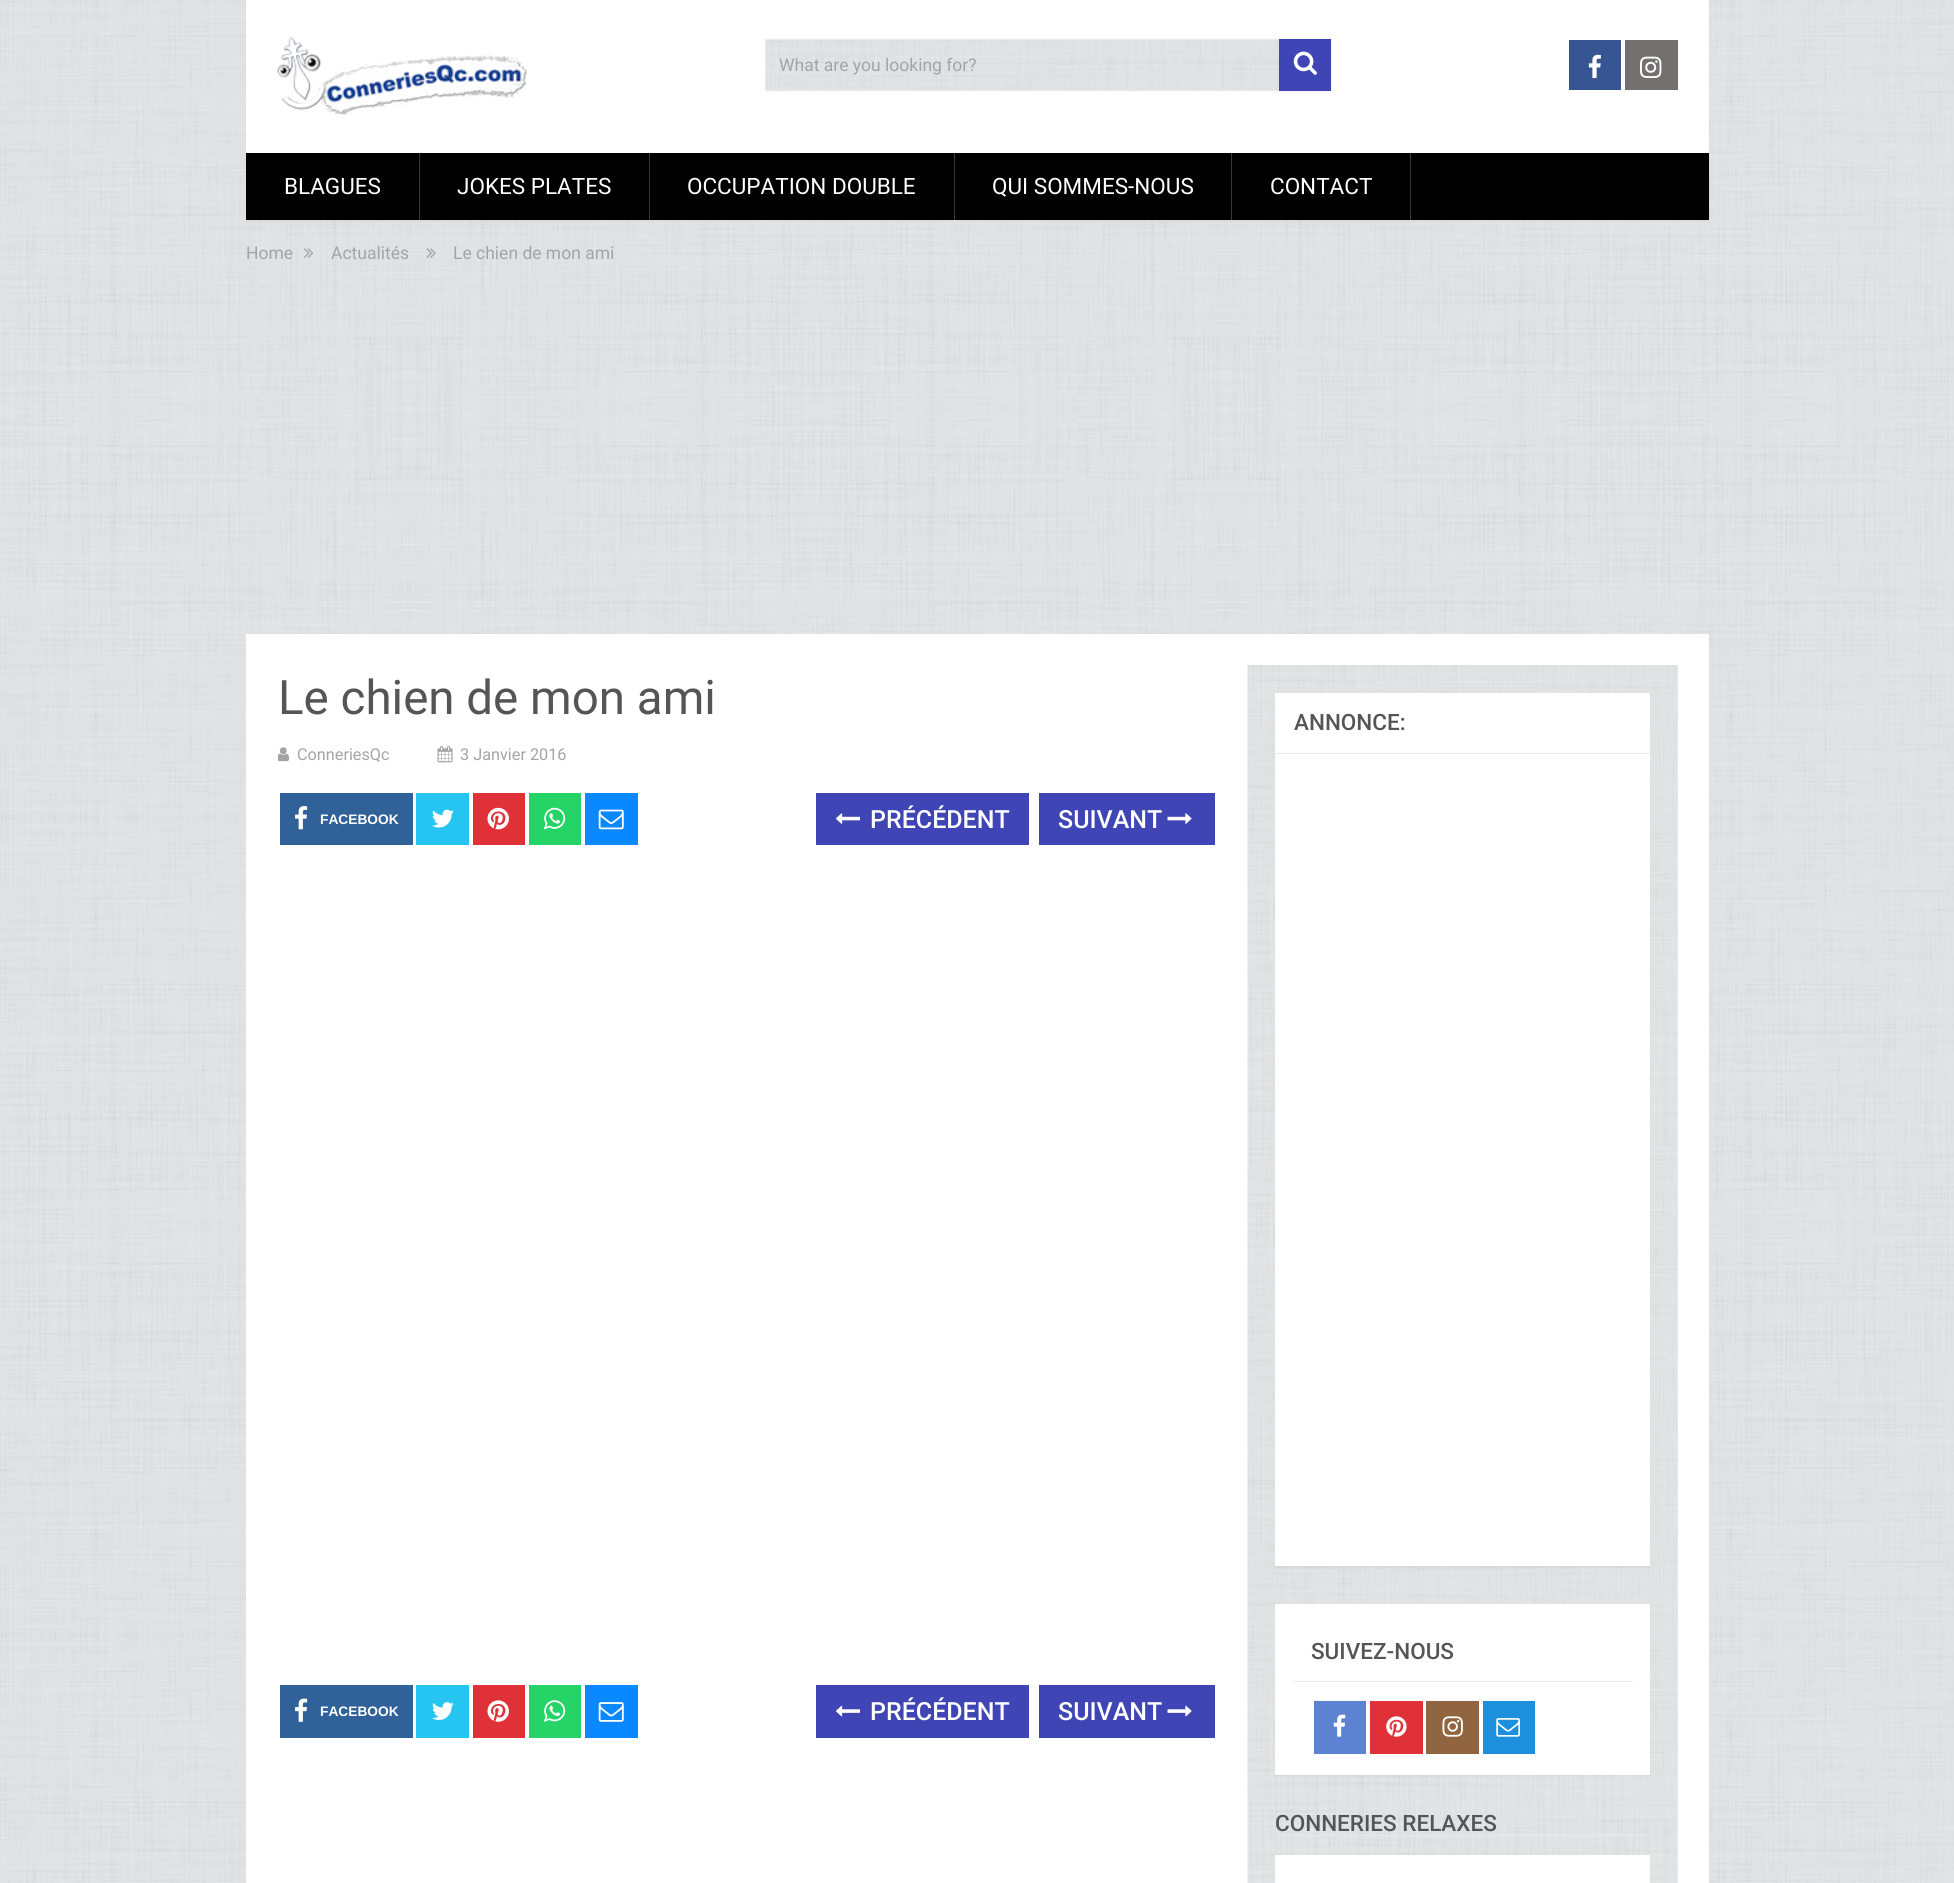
#include <cairo.h>
#include <math.h>
#include <stddef.h>


static void ink(cairo_t *ctx, unsigned color) {
    cairo_set_source_rgb(ctx, (color >> 16) / 255.0, (color >> 8 & 255) / 255.0, (color & 255) / 255.0);
}

static void round_path(cairo_t *ctx, double x, double y, double w, double h, double r) {
    cairo_new_sub_path(ctx);
    cairo_arc(ctx, x + w - r, y + h - r, r, 0, M_PI / 2);
    cairo_arc(ctx, x + r, y + h - r, r, M_PI / 2, M_PI);
    cairo_arc(ctx, x + r, y + r, r, M_PI, 1.5 * M_PI);
    cairo_arc(ctx, x + w - r, y + r, r, 1.5 * M_PI, 2 * M_PI);
    cairo_close_path(ctx);
}

static void blur_box(cairo_t *ctx, double x, double y, double w, double h, double r, double blur, double alpha) {
    cairo_push_group_with_content(ctx, CAIRO_CONTENT_ALPHA);
    cairo_set_operator(ctx, CAIRO_OPERATOR_SOURCE);
    for (int i = 15; i >= -15 && fmin(w, h) + blur * i / 3 > 0; i -= 2) {
        double e = blur * i / 6;
        cairo_set_source_rgba(ctx, 0, 0, 0, alpha * erfc((i - 1) / 8.5) / 2);
        round_path(ctx, x - e, y - e, w + 2 * e, h + 2 * e, fmax(0, fmin(r + e + blur * .6, fmin(w, h) / 2 + e)));
        cairo_fill(ctx);
    }
    cairo_pattern_t *soft = cairo_pop_group(ctx);
    cairo_mask(ctx, soft);
    cairo_pattern_destroy(soft);
}

static void paste(cairo_t *ctx, const char *path, double x, double y, double w, double h) {
    cairo_surface_t *image = cairo_image_surface_create_from_png(path);
    cairo_save(ctx);
    cairo_set_source_surface(ctx, image, x, y);
    cairo_rectangle(ctx, x, y, w, h);
    cairo_fill(ctx);
    cairo_restore(ctx);
    cairo_surface_destroy(image);
}

int main(void) {
    cairo_surface_t *surface = cairo_image_surface_create(CAIRO_FORMAT_RGB24, 1954, 1883);
    cairo_t *ctx = cairo_create(surface);
    cairo_font_options_t *options = cairo_font_options_create();
    cairo_font_options_set_hint_metrics(options, CAIRO_HINT_METRICS_OFF);
    cairo_font_options_set_hint_style(options, CAIRO_HINT_STYLE_NONE);
    cairo_set_font_options(ctx, options);
    cairo_set_miter_limit(ctx, 4);
    ink(ctx, 0xFFFFFF);
    cairo_paint(ctx);
    paste(ctx, "media/1.png", 0, 0, 1954, 1883);
    ink(ctx, 0x000000);
    blur_box(ctx, 246, 1, 1463, 220, 0, 1, 0.05);
    ink(ctx, 0xFFFFFF);
    cairo_rectangle(ctx, 246, 0, 1463, 153);
    cairo_fill(ctx);
    paste(ctx, "media/2.png", 277, 37, 251, 79);
    paste(ctx, "media/3.png", 765, 38, 567, 54);
    cairo_rectangle(ctx, 765.5, 39.5, 565, 51);
    ink(ctx, 0xEFEBE7);
    cairo_set_line_width(ctx, 1);
    cairo_stroke(ctx);
    cairo_select_font_face(ctx, "Roboto", CAIRO_FONT_SLANT_NORMAL, CAIRO_FONT_WEIGHT_NORMAL);
    cairo_set_font_size(ctx, 17.5);
    ink(ctx, 0xA4A4A4);
    cairo_move_to(ctx, 779, 71);
    cairo_show_text(ctx, "What are you looking for?");
    ink(ctx, 0x3F45B5);
    cairo_rectangle(ctx, 1279, 39, 52, 52);
    cairo_fill(ctx);
    paste(ctx, "media/4.png", 1293, 51, 24, 24);
    ink(ctx, 0x375593);
    cairo_rectangle(ctx, 1569, 40, 52, 50);
    cairo_fill(ctx);
    paste(ctx, "media/5.png", 1588, 54, 13, 25);
    ink(ctx, 0x757070);
    cairo_rectangle(ctx, 1625, 40, 53, 50);
    cairo_fill(ctx);
    paste(ctx, "media/6.png", 1640, 56, 22, 22);
    ink(ctx, 0x000000);
    cairo_rectangle(ctx, 246, 153, 1463, 67);
    cairo_fill(ctx);
    ink(ctx, 0x383838);
    cairo_rectangle(ctx, 419, 153, 1, 67);
    cairo_fill(ctx);
    cairo_set_font_size(ctx, 22.5);
    ink(ctx, 0xFFFFFF);
    cairo_move_to(ctx, 284, 194);
    cairo_show_text(ctx, "BLAGUES");
    ink(ctx, 0x383838);
    cairo_rectangle(ctx, 649, 153, 1, 67);
    cairo_fill(ctx);
    ink(ctx, 0xFFFFFF);
    cairo_move_to(ctx, 457, 194);
    cairo_show_text(ctx, "JOKES PLATES");
    ink(ctx, 0x383838);
    cairo_rectangle(ctx, 954, 153, 1, 67);
    cairo_fill(ctx);
    ink(ctx, 0xFFFFFF);
    cairo_move_to(ctx, 687, 194);
    cairo_show_text(ctx, "OCCUPATION DOUBLE");
    ink(ctx, 0x383838);
    cairo_rectangle(ctx, 1231, 153, 1, 67);
    cairo_fill(ctx);
    ink(ctx, 0xFFFFFF);
    cairo_move_to(ctx, 992, 194);
    cairo_show_text(ctx, "QUI SOMMES-NOUS");
    ink(ctx, 0x383838);
    cairo_rectangle(ctx, 1410, 153, 1, 67);
    cairo_fill(ctx);
    ink(ctx, 0xFFFFFF);
    cairo_move_to(ctx, 1270, 194);
    cairo_show_text(ctx, "CONTACT");
    cairo_set_font_size(ctx, 17.5);
    ink(ctx, 0xA4A4A4);
    cairo_move_to(ctx, 246, 259);
    cairo_show_text(ctx, "Home");
    paste(ctx, "media/7.png", 304, 248, 10, 10);
    cairo_move_to(ctx, 331, 259);
    cairo_show_text(ctx, "Actualités");
    paste(ctx, "media/8.png", 426, 248, 10, 10);
    cairo_move_to(ctx, 453, 259);
    cairo_show_text(ctx, "Le chien de mon ami");
    ink(ctx, 0xFFFFFF);
    cairo_rectangle(ctx, 246, 634, 1463, 1249);
    cairo_fill(ctx);
    cairo_set_font_size(ctx, 47.5);
    ink(ctx, 0x555555);
    cairo_move_to(ctx, 278, 714);
    cairo_show_text(ctx, "Le chien de mon ami");
    paste(ctx, "media/9.png", 278, 747, 12, 15);
    cairo_set_font_size(ctx, 16.25);
    ink(ctx, 0xA4A4A4);
    cairo_move_to(ctx, 297, 760);
    cairo_show_text(ctx, "ConneriesQc");
    paste(ctx, "media/10.png", 437, 746, 16, 17);
    cairo_move_to(ctx, 460, 760);
    cairo_show_text(ctx, "3 Janvier 2016");
    ink(ctx, 0x306199);
    cairo_rectangle(ctx, 280, 793, 133, 52);
    cairo_fill(ctx);
    paste(ctx, "media/11.png", 295, 806, 13, 24);
    cairo_select_font_face(ctx, "Liberation Sans", CAIRO_FONT_SLANT_NORMAL, CAIRO_FONT_WEIGHT_BOLD);
    cairo_set_font_size(ctx, 13.75);
    ink(ctx, 0xFFFFFF);
    cairo_move_to(ctx, 320, 824);
    cairo_show_text(ctx, "FACEBOOK");
    ink(ctx, 0x26C4F1);
    cairo_rectangle(ctx, 416, 793, 53, 52);
    cairo_fill(ctx);
    paste(ctx, "media/12.png", 432, 809, 22, 19);
    ink(ctx, 0xE13138);
    cairo_rectangle(ctx, 473, 793, 52, 52);
    cairo_fill(ctx);
    paste(ctx, "media/13.png", 487, 807, 22, 23);
    ink(ctx, 0x25D366);
    cairo_rectangle(ctx, 529, 793, 52, 52);
    cairo_fill(ctx);
    paste(ctx, "media/14.png", 543, 807, 23, 23);
    ink(ctx, 0x0A88FF);
    cairo_rectangle(ctx, 585, 793, 53, 52);
    cairo_fill(ctx);
    paste(ctx, "media/15.png", 598, 809, 26, 21);
    ink(ctx, 0x3F45B5);
    cairo_rectangle(ctx, 816, 793, 213, 52);
    cairo_fill(ctx);
    paste(ctx, "media/16.png", 835, 813, 25, 11);
    cairo_select_font_face(ctx, "Roboto Medium", CAIRO_FONT_SLANT_NORMAL, CAIRO_FONT_WEIGHT_NORMAL);
    cairo_set_font_size(ctx, 25);
    ink(ctx, 0xFFFFFF);
    cairo_move_to(ctx, 870, 828);
    cairo_show_text(ctx, "PRÉCÉDENT");
    ink(ctx, 0x3F45B5);
    cairo_rectangle(ctx, 1039, 793, 176, 52);
    cairo_fill(ctx);
    ink(ctx, 0xFFFFFF);
    cairo_move_to(ctx, 1058, 828);
    cairo_show_text(ctx, "SUIVANT");
    paste(ctx, "media/17.png", 1167, 813, 25, 11);
    ink(ctx, 0x306199);
    cairo_rectangle(ctx, 280, 1685, 133, 53);
    cairo_fill(ctx);
    paste(ctx, "media/18.png", 295, 1698, 13, 24);
    cairo_select_font_face(ctx, "Liberation Sans", CAIRO_FONT_SLANT_NORMAL, CAIRO_FONT_WEIGHT_BOLD);
    cairo_set_font_size(ctx, 13.75);
    ink(ctx, 0xFFFFFF);
    cairo_move_to(ctx, 320, 1716);
    cairo_show_text(ctx, "FACEBOOK");
    ink(ctx, 0x26C4F1);
    cairo_rectangle(ctx, 416, 1685, 53, 53);
    cairo_fill(ctx);
    paste(ctx, "media/19.png", 432, 1702, 22, 18);
    ink(ctx, 0xE13138);
    cairo_rectangle(ctx, 473, 1685, 52, 53);
    cairo_fill(ctx);
    paste(ctx, "media/20.png", 487, 1700, 22, 22);
    ink(ctx, 0x25D366);
    cairo_rectangle(ctx, 529, 1685, 52, 53);
    cairo_fill(ctx);
    paste(ctx, "media/21.png", 543, 1700, 23, 22);
    ink(ctx, 0x0A88FF);
    cairo_rectangle(ctx, 585, 1685, 53, 53);
    cairo_fill(ctx);
    paste(ctx, "media/22.png", 598, 1702, 26, 20);
    ink(ctx, 0x3F45B5);
    cairo_rectangle(ctx, 816, 1685, 213, 53);
    cairo_fill(ctx);
    paste(ctx, "media/23.png", 835, 1705, 25, 12);
    cairo_select_font_face(ctx, "Roboto Medium", CAIRO_FONT_SLANT_NORMAL, CAIRO_FONT_WEIGHT_NORMAL);
    cairo_set_font_size(ctx, 25);
    ink(ctx, 0xFFFFFF);
    cairo_move_to(ctx, 870, 1720);
    cairo_show_text(ctx, "PRÉCÉDENT");
    ink(ctx, 0x3F45B5);
    cairo_rectangle(ctx, 1039, 1685, 176, 53);
    cairo_fill(ctx);
    ink(ctx, 0xFFFFFF);
    cairo_move_to(ctx, 1058, 1720);
    cairo_show_text(ctx, "SUIVANT");
    paste(ctx, "media/24.png", 1167, 1705, 25, 12);
    ink(ctx, 0xF0EDE9);
    cairo_rectangle(ctx, 1677, 665, 1, 1218);
    cairo_fill(ctx);
    paste(ctx, "media/25.png", 1247, 665, 431, 1218);
    ink(ctx, 0x000000);
    blur_box(ctx, 1275, 694, 375, 874, 0, 1, 0.05);
    ink(ctx, 0xFFFFFF);
    cairo_rectangle(ctx, 1275, 693, 375, 873);
    cairo_fill(ctx);
    ink(ctx, 0xE9E9E9);
    cairo_rectangle(ctx, 1275, 753, 375, 1);
    cairo_fill(ctx);
    cairo_set_font_size(ctx, 22.5);
    ink(ctx, 0x555555);
    cairo_move_to(ctx, 1294, 730);
    cairo_show_text(ctx, "ANNONCE:");
    ink(ctx, 0x000000);
    blur_box(ctx, 1275, 1605, 375, 171, 0, 1, 0.05);
    ink(ctx, 0xFFFFFF);
    cairo_rectangle(ctx, 1275, 1604, 375, 171);
    cairo_fill(ctx);
    ink(ctx, 0xE9E9E9);
    cairo_rectangle(ctx, 1293, 1681, 340, 1);
    cairo_fill(ctx);
    ink(ctx, 0x555555);
    cairo_move_to(ctx, 1311, 1659);
    cairo_show_text(ctx, "SUIVEZ-NOUS");
    ink(ctx, 0x5D82D1);
    cairo_rectangle(ctx, 1314, 1701, 52, 53);
    cairo_fill(ctx);
    paste(ctx, "media/26.png", 1333, 1714, 13, 23);
    ink(ctx, 0xE13138);
    cairo_rectangle(ctx, 1370, 1701, 53, 53);
    cairo_fill(ctx);
    paste(ctx, "media/27.png", 1386, 1716, 21, 21);
    ink(ctx, 0x91653F);
    cairo_rectangle(ctx, 1426, 1701, 53, 53);
    cairo_fill(ctx);
    paste(ctx, "media/28.png", 1442, 1716, 21, 21);
    ink(ctx, 0x1D90DD);
    cairo_rectangle(ctx, 1483, 1701, 52, 53);
    cairo_fill(ctx);
    paste(ctx, "media/29.png", 1496, 1718, 24, 19);
    ink(ctx, 0xE9E9E9);
    cairo_rectangle(ctx, 1275, 1835, 375, 1);
    cairo_fill(ctx);
    ink(ctx, 0x555555);
    cairo_move_to(ctx, 1275, 1831);
    cairo_show_text(ctx, "CONNERIES RELAXES");
    ink(ctx, 0xFFFFFF);
    cairo_rectangle(ctx, 1275, 1855, 375, 28);
    cairo_fill(ctx);
    cairo_surface_write_to_png(surface, "image.png");
    cairo_font_options_destroy(options);
    cairo_destroy(ctx);
    cairo_surface_destroy(surface);
    return 0;
}
